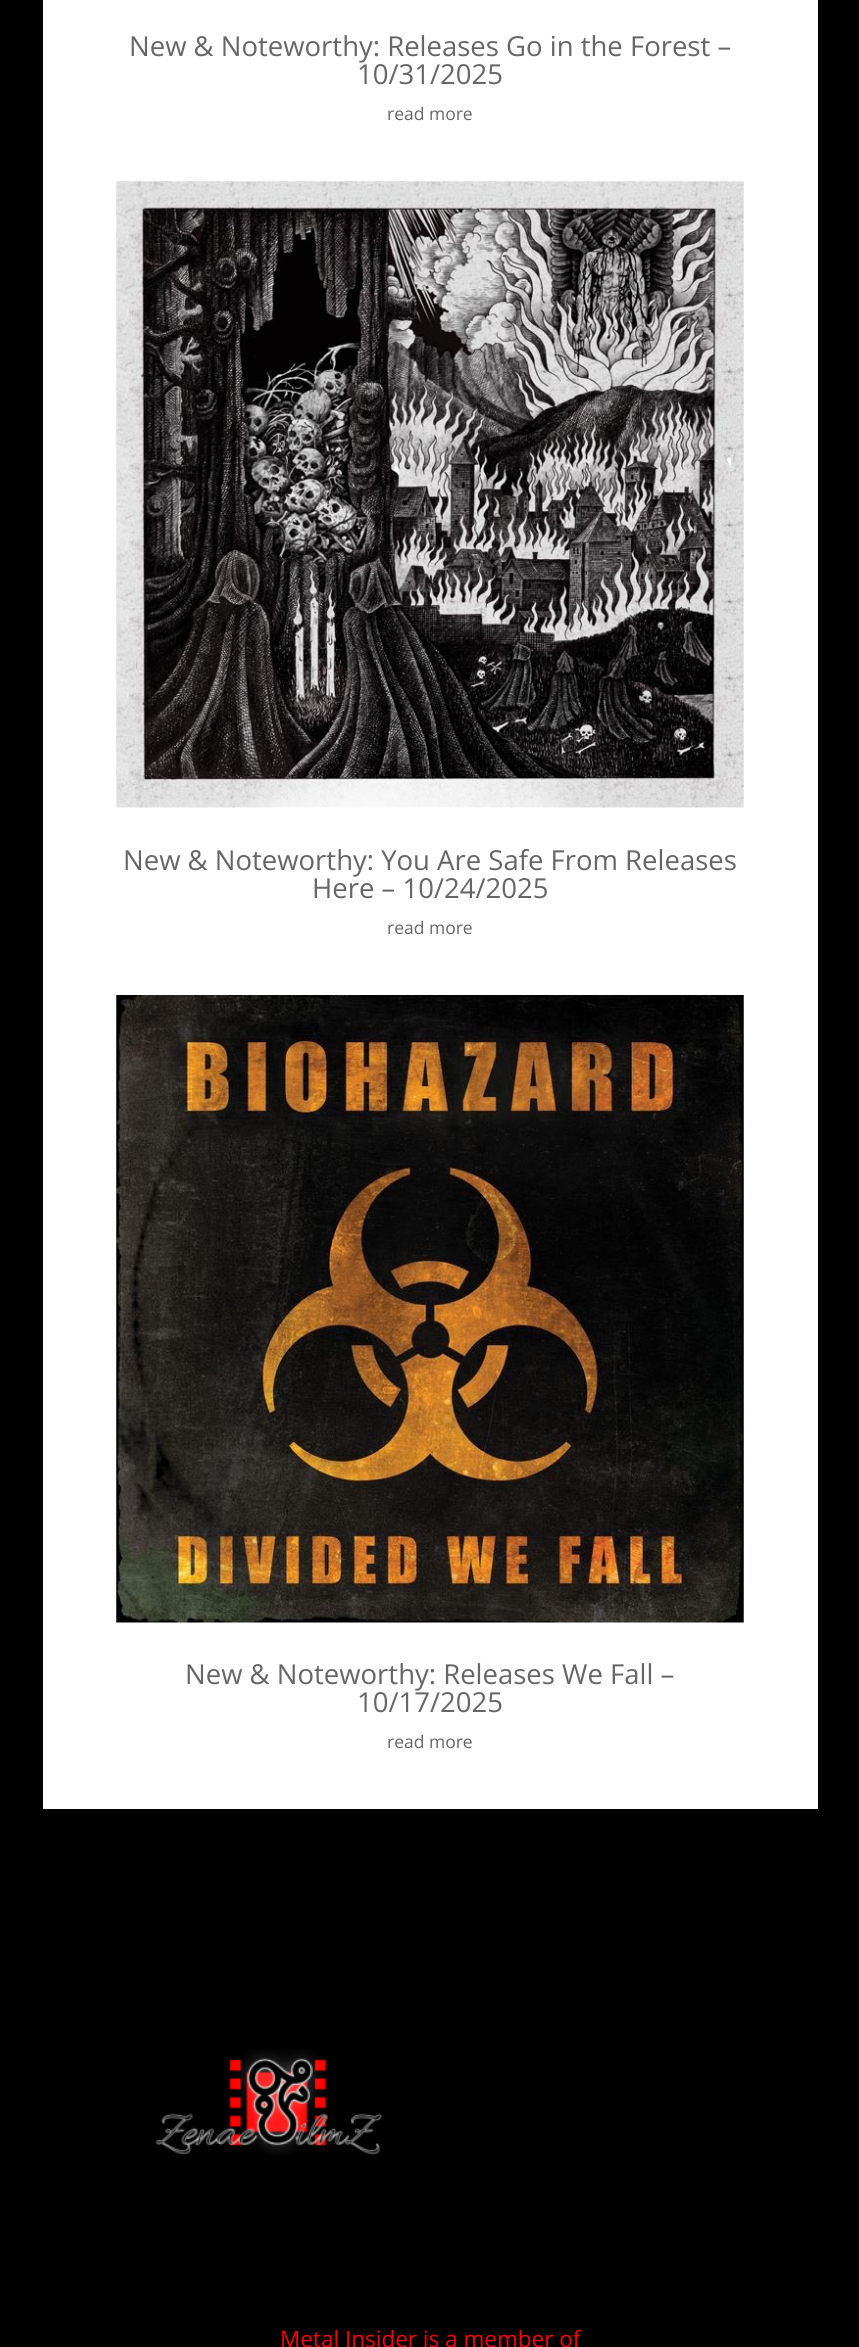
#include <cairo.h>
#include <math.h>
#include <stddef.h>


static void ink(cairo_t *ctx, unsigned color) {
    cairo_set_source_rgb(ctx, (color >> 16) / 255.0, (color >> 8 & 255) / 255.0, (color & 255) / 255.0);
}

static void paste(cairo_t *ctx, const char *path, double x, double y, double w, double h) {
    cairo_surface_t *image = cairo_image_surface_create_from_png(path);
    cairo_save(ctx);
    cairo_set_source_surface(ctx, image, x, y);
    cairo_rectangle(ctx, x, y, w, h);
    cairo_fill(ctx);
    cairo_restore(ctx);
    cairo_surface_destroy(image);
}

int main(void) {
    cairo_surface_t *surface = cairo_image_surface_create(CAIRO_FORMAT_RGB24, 859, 2347);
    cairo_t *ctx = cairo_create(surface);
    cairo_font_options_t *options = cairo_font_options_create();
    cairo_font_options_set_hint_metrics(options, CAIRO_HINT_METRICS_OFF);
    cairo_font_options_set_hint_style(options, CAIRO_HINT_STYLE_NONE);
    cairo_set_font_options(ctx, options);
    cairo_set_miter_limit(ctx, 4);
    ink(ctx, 0x000000);
    cairo_paint(ctx);
    ink(ctx, 0xFFFFFF);
    cairo_rectangle(ctx, 43, 0, 775, 1809);
    cairo_fill(ctx);
    cairo_select_font_face(ctx, "Open Sans", CAIRO_FONT_SLANT_NORMAL, CAIRO_FONT_WEIGHT_NORMAL);
    cairo_set_font_size(ctx, 27.5);
    ink(ctx, 0x666666);
    cairo_move_to(ctx, 129, 56);
    cairo_show_text(ctx, "New & Noteworthy: Releases Go in the Forest –");
    cairo_move_to(ctx, 357, 84);
    cairo_show_text(ctx, "10/31/2025");
    cairo_set_font_size(ctx, 17.5);
    cairo_move_to(ctx, 387, 120);
    cairo_show_text(ctx, "read more");
    paste(ctx, "media/1.png", 116, 181, 628, 627);
    cairo_set_font_size(ctx, 27.5);
    cairo_move_to(ctx, 123, 870);
    cairo_show_text(ctx, "New & Noteworthy: You Are Safe From Releases");
    cairo_move_to(ctx, 312, 898);
    cairo_show_text(ctx, "Here – 10/24/2025");
    cairo_set_font_size(ctx, 17.5);
    cairo_move_to(ctx, 387, 934);
    cairo_show_text(ctx, "read more");
    paste(ctx, "media/2.png", 116, 995, 628, 628);
    cairo_set_font_size(ctx, 27.5);
    cairo_move_to(ctx, 185, 1684);
    cairo_show_text(ctx, "New & Noteworthy: Releases We Fall –");
    cairo_move_to(ctx, 357, 1712);
    cairo_show_text(ctx, "10/17/2025");
    cairo_set_font_size(ctx, 17.5);
    cairo_move_to(ctx, 387, 1748);
    cairo_show_text(ctx, "read more");
    paste(ctx, "media/3.png", 156, 2049, 226, 106);
    cairo_set_font_size(ctx, 22.5);
    ink(ctx, 0xFF0000);
    cairo_move_to(ctx, 280, 2347);
    cairo_show_text(ctx, "Metal Insider is a member of");
    cairo_surface_write_to_png(surface, "image.png");
    cairo_font_options_destroy(options);
    cairo_destroy(ctx);
    cairo_surface_destroy(surface);
    return 0;
}
